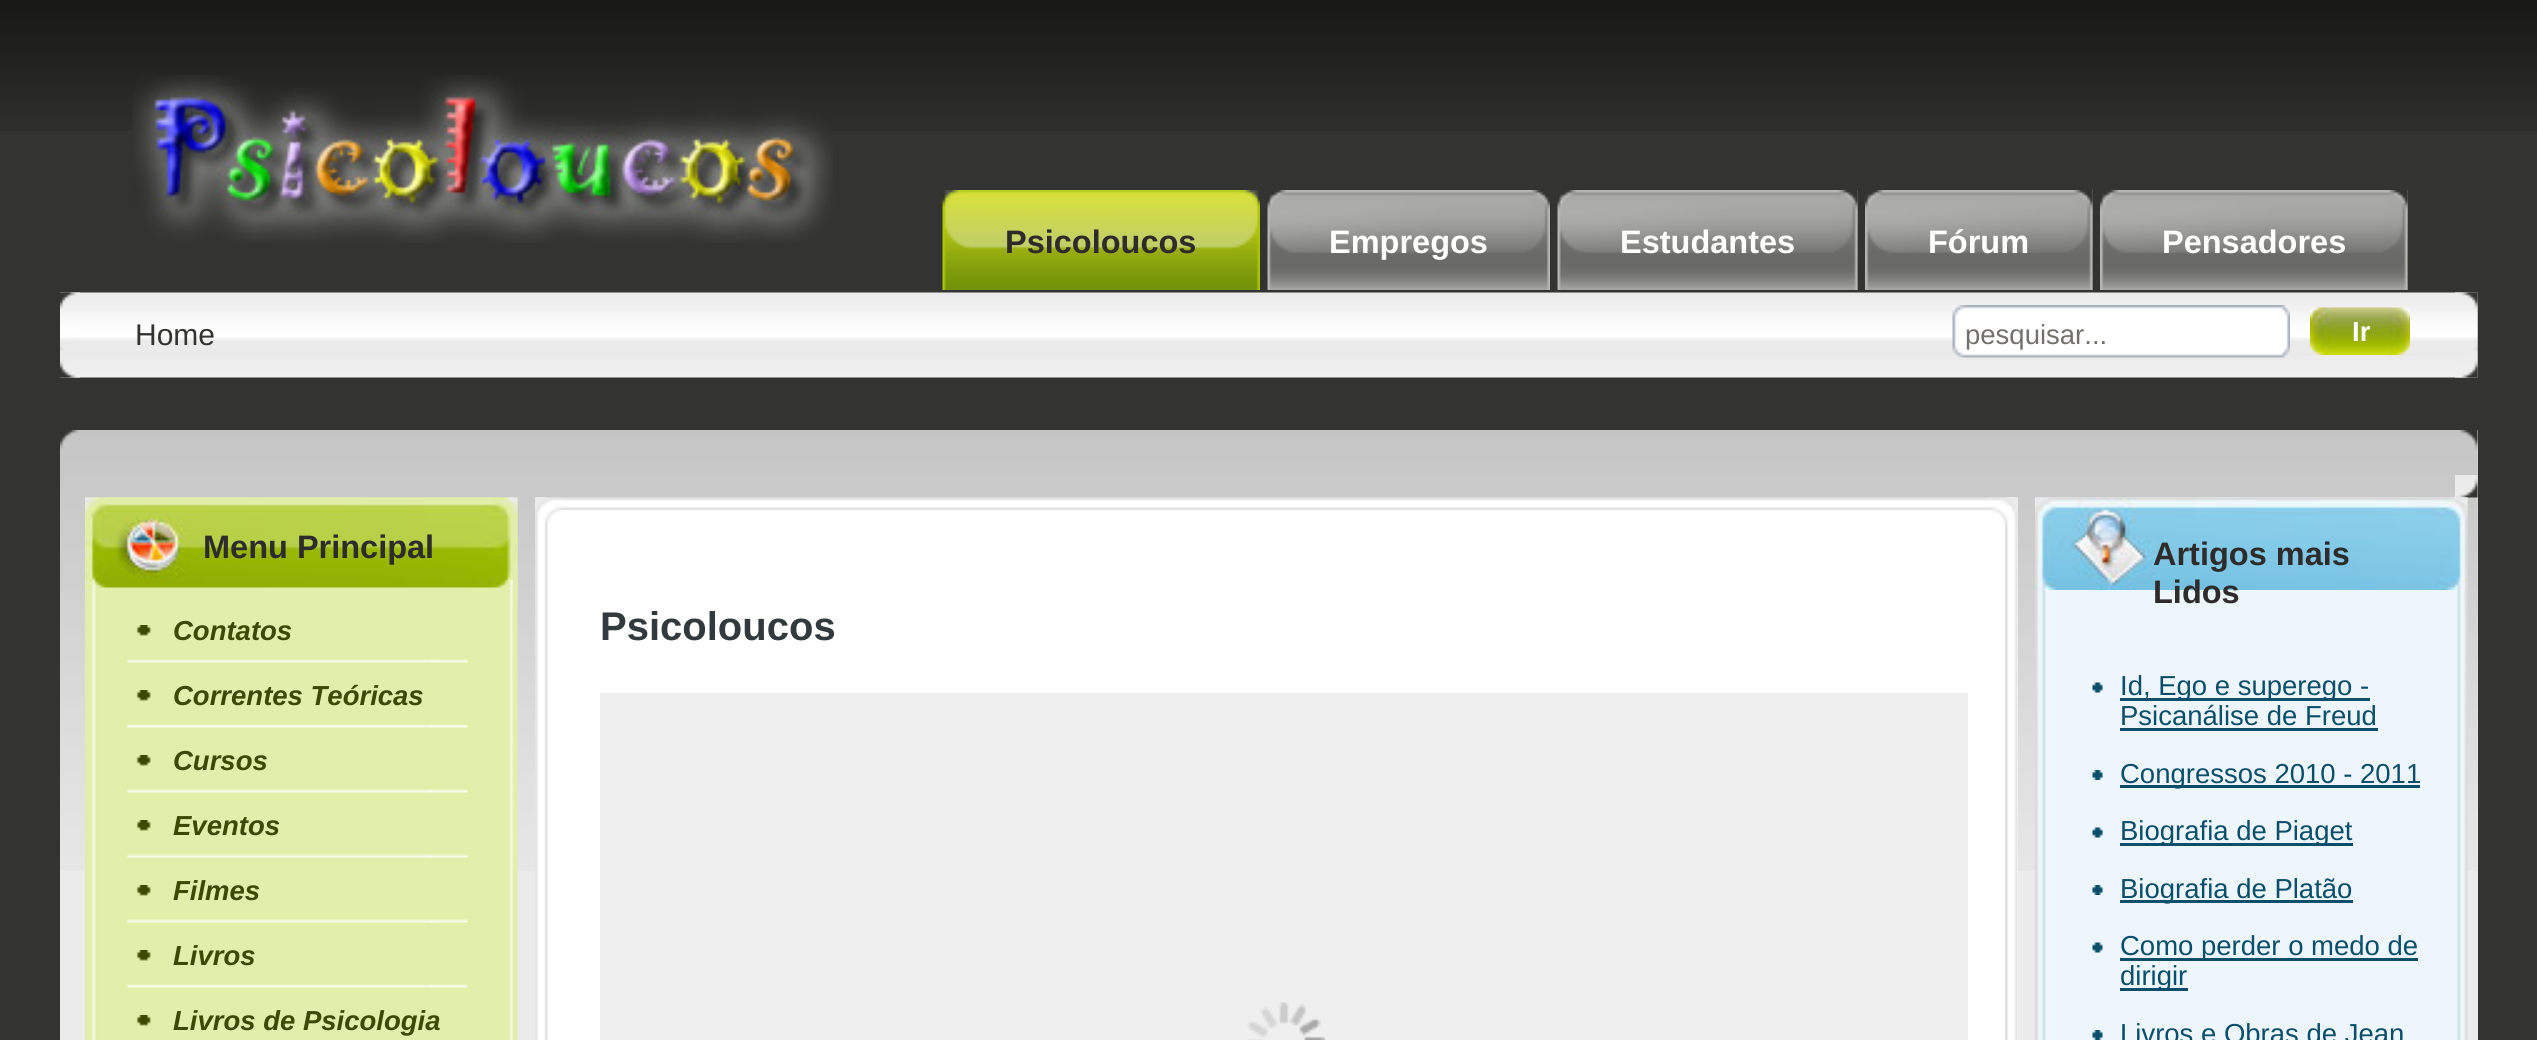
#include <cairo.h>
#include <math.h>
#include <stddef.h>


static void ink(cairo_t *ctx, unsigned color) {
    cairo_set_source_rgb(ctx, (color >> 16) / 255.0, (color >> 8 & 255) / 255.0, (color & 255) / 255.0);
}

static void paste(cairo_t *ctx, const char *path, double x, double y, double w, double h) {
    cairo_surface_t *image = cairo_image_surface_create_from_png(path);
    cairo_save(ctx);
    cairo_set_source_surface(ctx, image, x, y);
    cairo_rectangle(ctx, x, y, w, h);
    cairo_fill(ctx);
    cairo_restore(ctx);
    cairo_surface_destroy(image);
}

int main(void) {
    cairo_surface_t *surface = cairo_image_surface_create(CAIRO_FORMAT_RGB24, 2537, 1040);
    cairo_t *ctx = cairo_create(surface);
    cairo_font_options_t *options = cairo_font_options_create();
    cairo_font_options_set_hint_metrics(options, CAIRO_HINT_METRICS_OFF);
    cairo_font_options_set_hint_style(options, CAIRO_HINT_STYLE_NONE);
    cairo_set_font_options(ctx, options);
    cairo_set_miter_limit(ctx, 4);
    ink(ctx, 0x333331);
    cairo_paint(ctx);
    paste(ctx, "media/1.png", 0, 0, 2537, 131);
    paste(ctx, "media/2.png", 132, 75, 701, 168);
    paste(ctx, "media/3.png", 942, 190, 291, 100);
    paste(ctx, "media/4.png", 1232, 190, 28, 100);
    cairo_select_font_face(ctx, "Liberation Sans", CAIRO_FONT_SLANT_NORMAL, CAIRO_FONT_WEIGHT_BOLD);
    cairo_set_font_size(ctx, 32.5);
    ink(ctx, 0x2D2C2A);
    cairo_move_to(ctx, 1005, 253);
    cairo_show_text(ctx, "Psicoloucos");
    paste(ctx, "media/5.png", 1267, 190, 258, 100);
    paste(ctx, "media/6.png", 1525, 190, 25, 100);
    ink(ctx, 0xFFFFFF);
    cairo_move_to(ctx, 1329, 253);
    cairo_show_text(ctx, "Empregos");
    paste(ctx, "media/7.png", 1557, 190, 301, 100);
    paste(ctx, "media/8.png", 1833, 190, 25, 100);
    cairo_move_to(ctx, 1620, 253);
    cairo_show_text(ctx, "Estudantes");
    paste(ctx, "media/9.png", 1865, 190, 228, 100);
    paste(ctx, "media/10.png", 2068, 190, 25, 100);
    cairo_move_to(ctx, 1928, 253);
    cairo_show_text(ctx, "Fórum");
    paste(ctx, "media/11.png", 2100, 190, 308, 100);
    paste(ctx, "media/8.png", 2383, 190, 25, 100);
    cairo_move_to(ctx, 2162, 253);
    cairo_show_text(ctx, "Pensadores");
    paste(ctx, "media/12.png", 60, 292, 2418, 86);
    paste(ctx, "media/13.png", 60, 292, 20, 86);
    paste(ctx, "media/14.png", 2455, 292, 23, 86);
    cairo_select_font_face(ctx, "Liberation Sans", CAIRO_FONT_SLANT_NORMAL, CAIRO_FONT_WEIGHT_NORMAL);
    cairo_set_font_size(ctx, 30);
    ink(ctx, 0x333331);
    cairo_move_to(ctx, 135, 345);
    cairo_show_text(ctx, "Home");
    paste(ctx, "media/15.png", 1952, 305, 338, 53);
    cairo_set_font_size(ctx, 27.5);
    ink(ctx, 0x73716B);
    cairo_move_to(ctx, 1965, 344);
    cairo_show_text(ctx, "pesquisar...");
    paste(ctx, "media/16.png", 2310, 307, 100, 48);
    cairo_select_font_face(ctx, "Liberation Sans", CAIRO_FONT_SLANT_NORMAL, CAIRO_FONT_WEIGHT_BOLD);
    ink(ctx, 0xFFFFFF);
    cairo_move_to(ctx, 2352, 341);
    cairo_show_text(ctx, "Ir");
    ink(ctx, 0xEBEBEB);
    cairo_rectangle(ctx, 60, 430, 2418, 610);
    cairo_fill(ctx);
    paste(ctx, "media/17.png", 60, 430, 2418, 441);
    paste(ctx, "media/18.png", 60, 430, 19, 19);
    paste(ctx, "media/19.png", 2459, 430, 19, 279);
    paste(ctx, "media/20.png", 2455, 475, 23, 23);
    paste(ctx, "media/21.png", 85, 497, 433, 543);
    paste(ctx, "media/22.png", 85, 497, 433, 91);
    cairo_set_font_size(ctx, 32.5);
    ink(ctx, 0x2D2C2A);
    cairo_move_to(ctx, 203, 558);
    cairo_show_text(ctx, "Menu Principal");
    paste(ctx, "media/23.png", 127, 625, 341, 38);
    cairo_select_font_face(ctx, "Liberation Sans", CAIRO_FONT_SLANT_ITALIC, CAIRO_FONT_WEIGHT_BOLD);
    cairo_set_font_size(ctx, 27.5);
    ink(ctx, 0x3D4902);
    cairo_move_to(ctx, 173, 640);
    cairo_show_text(ctx, "Contatos");
    paste(ctx, "media/23.png", 127, 690, 341, 38);
    cairo_move_to(ctx, 173, 705);
    cairo_show_text(ctx, "Correntes Teóricas");
    paste(ctx, "media/24.png", 127, 755, 341, 38);
    cairo_move_to(ctx, 173, 770);
    cairo_show_text(ctx, "Cursos");
    paste(ctx, "media/23.png", 127, 820, 341, 38);
    cairo_move_to(ctx, 173, 835);
    cairo_show_text(ctx, "Eventos");
    paste(ctx, "media/23.png", 127, 885, 341, 38);
    cairo_move_to(ctx, 173, 900);
    cairo_show_text(ctx, "Filmes");
    paste(ctx, "media/23.png", 127, 950, 341, 38);
    cairo_move_to(ctx, 173, 965);
    cairo_show_text(ctx, "Livros");
    paste(ctx, "media/25.png", 136, 1015, 15, 11);
    cairo_move_to(ctx, 173, 1030);
    cairo_show_text(ctx, "Livros de Psicologia");
    ink(ctx, 0xFFFFFF);
    cairo_rectangle(ctx, 547, 498, 1471, 542);
    cairo_fill(ctx);
    paste(ctx, "media/26.png", 535, 497, 1483, 13);
    paste(ctx, "media/27.png", 535, 497, 13, 543);
    paste(ctx, "media/28.png", 2005, 497, 13, 543);
    paste(ctx, "media/29.png", 535, 497, 28, 27);
    paste(ctx, "media/30.png", 1987, 497, 31, 31);
    cairo_select_font_face(ctx, "Liberation Sans", CAIRO_FONT_SLANT_NORMAL, CAIRO_FONT_WEIGHT_BOLD);
    cairo_set_font_size(ctx, 40);
    ink(ctx, 0x333A3D);
    cairo_move_to(ctx, 600, 640);
    cairo_show_text(ctx, "Psicoloucos");
    ink(ctx, 0xEFEFEF);
    cairo_rectangle(ctx, 600, 693, 1368, 347);
    cairo_fill(ctx);
    paste(ctx, "media/31.png", 1247, 1002, 78, 38);
    paste(ctx, "media/32.png", 2035, 497, 433, 543);
    paste(ctx, "media/33.png", 2035, 497, 433, 93);
    cairo_set_font_size(ctx, 32.5);
    ink(ctx, 0x2D2C2A);
    cairo_move_to(ctx, 2153, 565);
    cairo_show_text(ctx, "Artigos mais");
    cairo_move_to(ctx, 2153, 603);
    cairo_show_text(ctx, "Lidos");
    paste(ctx, "media/34.png", 2092, 682, 11, 11);
    ink(ctx, 0x094E6B);
    cairo_rectangle(ctx, 2120, 698, 250, 3);
    cairo_fill(ctx);
    cairo_select_font_face(ctx, "Liberation Sans", CAIRO_FONT_SLANT_NORMAL, CAIRO_FONT_WEIGHT_NORMAL);
    cairo_set_font_size(ctx, 27.5);
    cairo_move_to(ctx, 2120, 695);
    cairo_show_text(ctx, "Id, Ego e superego -");
    cairo_move_to(ctx, 2120, 725);
    cairo_show_text(ctx, "Psicanálise de Freud");
    cairo_rectangle(ctx, 2120, 728, 258, 3);
    cairo_fill(ctx);
    paste(ctx, "media/35.png", 2092, 770, 11, 10);
    cairo_rectangle(ctx, 2120, 785, 300, 3);
    cairo_fill(ctx);
    cairo_move_to(ctx, 2120, 783);
    cairo_show_text(ctx, "Congressos 2010 - 2011");
    paste(ctx, "media/34.png", 2092, 827, 11, 11);
    cairo_rectangle(ctx, 2120, 843, 233, 3);
    cairo_fill(ctx);
    cairo_move_to(ctx, 2120, 840);
    cairo_show_text(ctx, "Biografia de Piaget");
    paste(ctx, "media/35.png", 2092, 885, 11, 10);
    cairo_rectangle(ctx, 2120, 900, 233, 3);
    cairo_fill(ctx);
    cairo_move_to(ctx, 2120, 898);
    cairo_show_text(ctx, "Biografia de Platão");
    paste(ctx, "media/34.png", 2092, 942, 11, 11);
    cairo_rectangle(ctx, 2120, 958, 298, 3);
    cairo_fill(ctx);
    cairo_move_to(ctx, 2120, 955);
    cairo_show_text(ctx, "Como perder o medo de");
    cairo_rectangle(ctx, 2120, 988, 68, 3);
    cairo_fill(ctx);
    cairo_move_to(ctx, 2120, 985);
    cairo_show_text(ctx, "dirigir");
    paste(ctx, "media/35.png", 2092, 1030, 11, 10);
    cairo_move_to(ctx, 2120, 1043);
    cairo_show_text(ctx, "Livros e Obras de Jean");
    cairo_surface_write_to_png(surface, "image.png");
    cairo_font_options_destroy(options);
    cairo_destroy(ctx);
    cairo_surface_destroy(surface);
    return 0;
}
